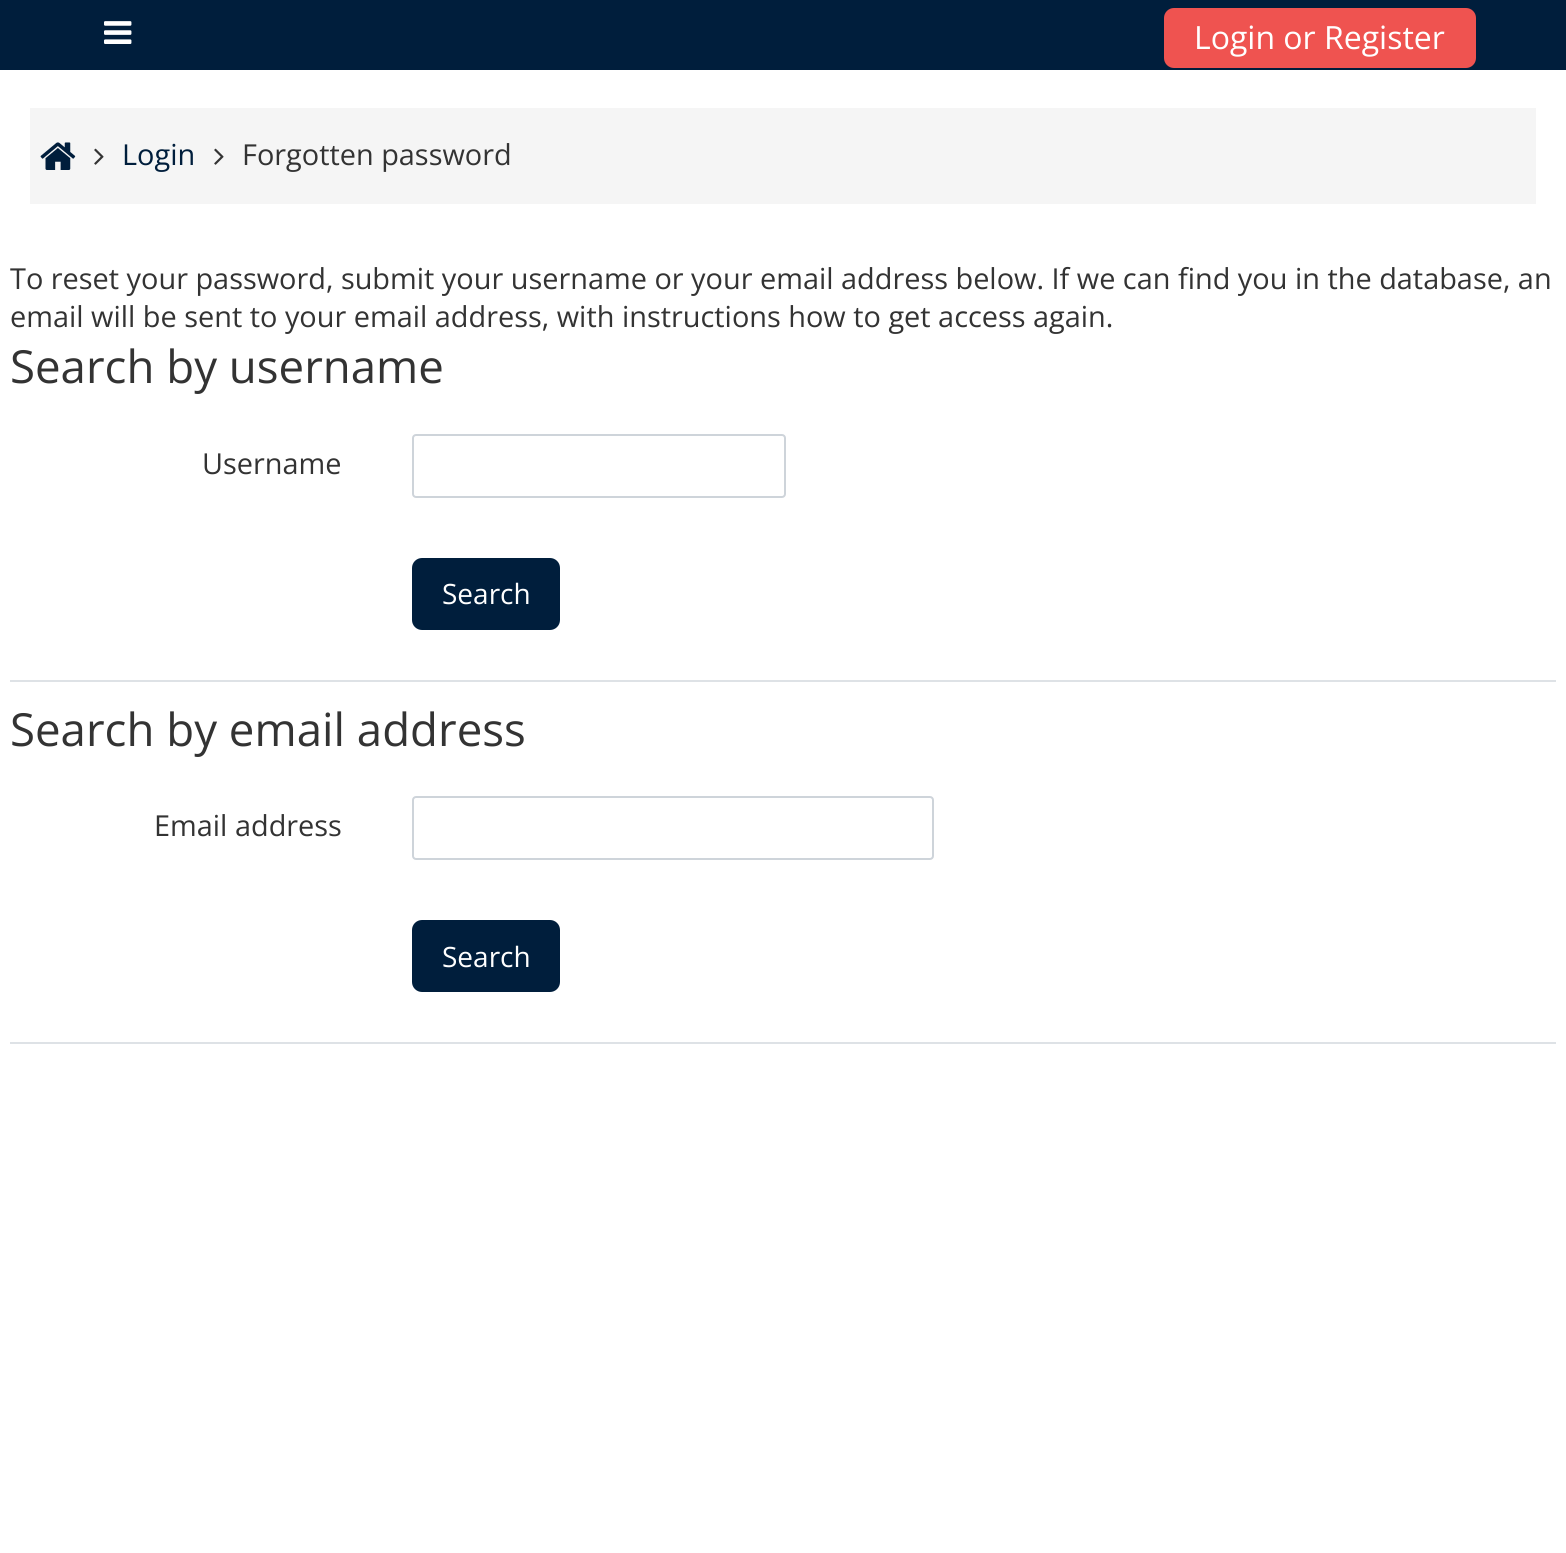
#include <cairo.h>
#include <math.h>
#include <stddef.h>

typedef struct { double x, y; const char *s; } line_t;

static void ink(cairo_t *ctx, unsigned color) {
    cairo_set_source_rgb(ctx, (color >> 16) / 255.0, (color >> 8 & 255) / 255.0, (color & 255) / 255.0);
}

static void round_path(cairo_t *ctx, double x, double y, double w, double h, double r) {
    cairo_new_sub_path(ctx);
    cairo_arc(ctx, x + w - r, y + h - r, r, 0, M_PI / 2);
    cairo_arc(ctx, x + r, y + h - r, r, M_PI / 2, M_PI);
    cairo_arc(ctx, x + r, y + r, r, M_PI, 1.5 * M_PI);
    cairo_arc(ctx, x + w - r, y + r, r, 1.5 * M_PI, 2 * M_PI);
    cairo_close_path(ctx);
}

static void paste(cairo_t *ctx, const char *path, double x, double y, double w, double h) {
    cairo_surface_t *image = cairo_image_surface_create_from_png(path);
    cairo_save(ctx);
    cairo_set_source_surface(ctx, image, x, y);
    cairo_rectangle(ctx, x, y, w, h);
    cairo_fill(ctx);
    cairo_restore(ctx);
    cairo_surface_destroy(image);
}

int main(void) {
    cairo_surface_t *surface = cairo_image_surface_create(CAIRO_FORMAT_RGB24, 1566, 1553);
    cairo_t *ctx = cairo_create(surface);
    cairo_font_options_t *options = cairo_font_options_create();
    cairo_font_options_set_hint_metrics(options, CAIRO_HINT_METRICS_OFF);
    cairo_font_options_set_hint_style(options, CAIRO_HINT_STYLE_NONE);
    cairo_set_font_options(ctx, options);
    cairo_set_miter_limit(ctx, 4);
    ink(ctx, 0xFFFFFF);
    cairo_paint(ctx);
    ink(ctx, 0x001E3C);
    cairo_rectangle(ctx, 0, 0, 1566, 70);
    cairo_fill(ctx);
    paste(ctx, "media/1.png", 104, 21, 28, 23);
    ink(ctx, 0xEF5350);
    round_path(ctx, 1164, 8, 312, 60, 10);
    cairo_fill(ctx);
    cairo_select_font_face(ctx, "Open Sans", CAIRO_FONT_SLANT_NORMAL, CAIRO_FONT_WEIGHT_NORMAL);
    cairo_set_font_size(ctx, 32);
    ink(ctx, 0xFFFFFF);
    cairo_move_to(ctx, 1194, 49);
    cairo_show_text(ctx, "Login or Register");
    ink(ctx, 0xF5F5F5);
    cairo_rectangle(ctx, 30, 108, 1506, 96);
    cairo_fill(ctx);
    paste(ctx, "media/2.png", 40, 142, 36, 28);
    paste(ctx, "media/3.png", 94, 148, 10, 17);
    cairo_set_font_size(ctx, 28.88);
    ink(ctx, 0x001E3C);
    cairo_move_to(ctx, 122, 165);
    cairo_show_text(ctx, "Login");
    paste(ctx, "media/3.png", 214, 148, 10, 17);
    ink(ctx, 0x333333);
    {
        static const line_t items[] = {
            {242, 165, "Forgotten password"},
            {10, 289, "To reset your password, submit your username or your email address below. If we can find you in the database, an"},
            {10, 327, "email will be sent to your email address, with instructions how to get access again."},
        };
        for (size_t i = 0; i < sizeof items / sizeof *items; i++) {
            cairo_move_to(ctx, items[i].x, items[i].y);
            cairo_show_text(ctx, items[i].s);
        }
    }
    ink(ctx, 0xDEE2E6);
    cairo_rectangle(ctx, 10, 680, 1546, 2);
    cairo_fill(ctx);
    cairo_set_font_size(ctx, 45.6);
    ink(ctx, 0x333333);
    cairo_move_to(ctx, 10, 383);
    cairo_show_text(ctx, "Search by username");
    cairo_set_font_size(ctx, 28.88);
    cairo_move_to(ctx, 202, 474);
    cairo_show_text(ctx, "Username");
    round_path(ctx, 413, 435, 372, 62, 3);
    ink(ctx, 0xCED4DA);
    cairo_stroke(ctx);
    ink(ctx, 0x001E3C);
    round_path(ctx, 412, 558, 148, 72, 10);
    cairo_fill(ctx);
    cairo_set_font_size(ctx, 28);
    ink(ctx, 0xFFFFFF);
    cairo_move_to(ctx, 442, 604);
    cairo_show_text(ctx, "Search");
    ink(ctx, 0xDEE2E6);
    cairo_rectangle(ctx, 10, 1042, 1546, 2);
    cairo_fill(ctx);
    cairo_set_font_size(ctx, 45.6);
    ink(ctx, 0x333333);
    cairo_move_to(ctx, 10, 746);
    cairo_show_text(ctx, "Search by email address");
    cairo_set_font_size(ctx, 28.88);
    cairo_move_to(ctx, 154, 836);
    cairo_show_text(ctx, "Email address");
    round_path(ctx, 413, 797, 520, 62, 3);
    ink(ctx, 0xCED4DA);
    cairo_stroke(ctx);
    ink(ctx, 0x001E3C);
    round_path(ctx, 412, 920, 148, 72, 10);
    cairo_fill(ctx);
    cairo_set_font_size(ctx, 28);
    ink(ctx, 0xFFFFFF);
    cairo_move_to(ctx, 442, 967);
    cairo_show_text(ctx, "Search");
    cairo_surface_write_to_png(surface, "image.png");
    cairo_font_options_destroy(options);
    cairo_destroy(ctx);
    cairo_surface_destroy(surface);
    return 0;
}
